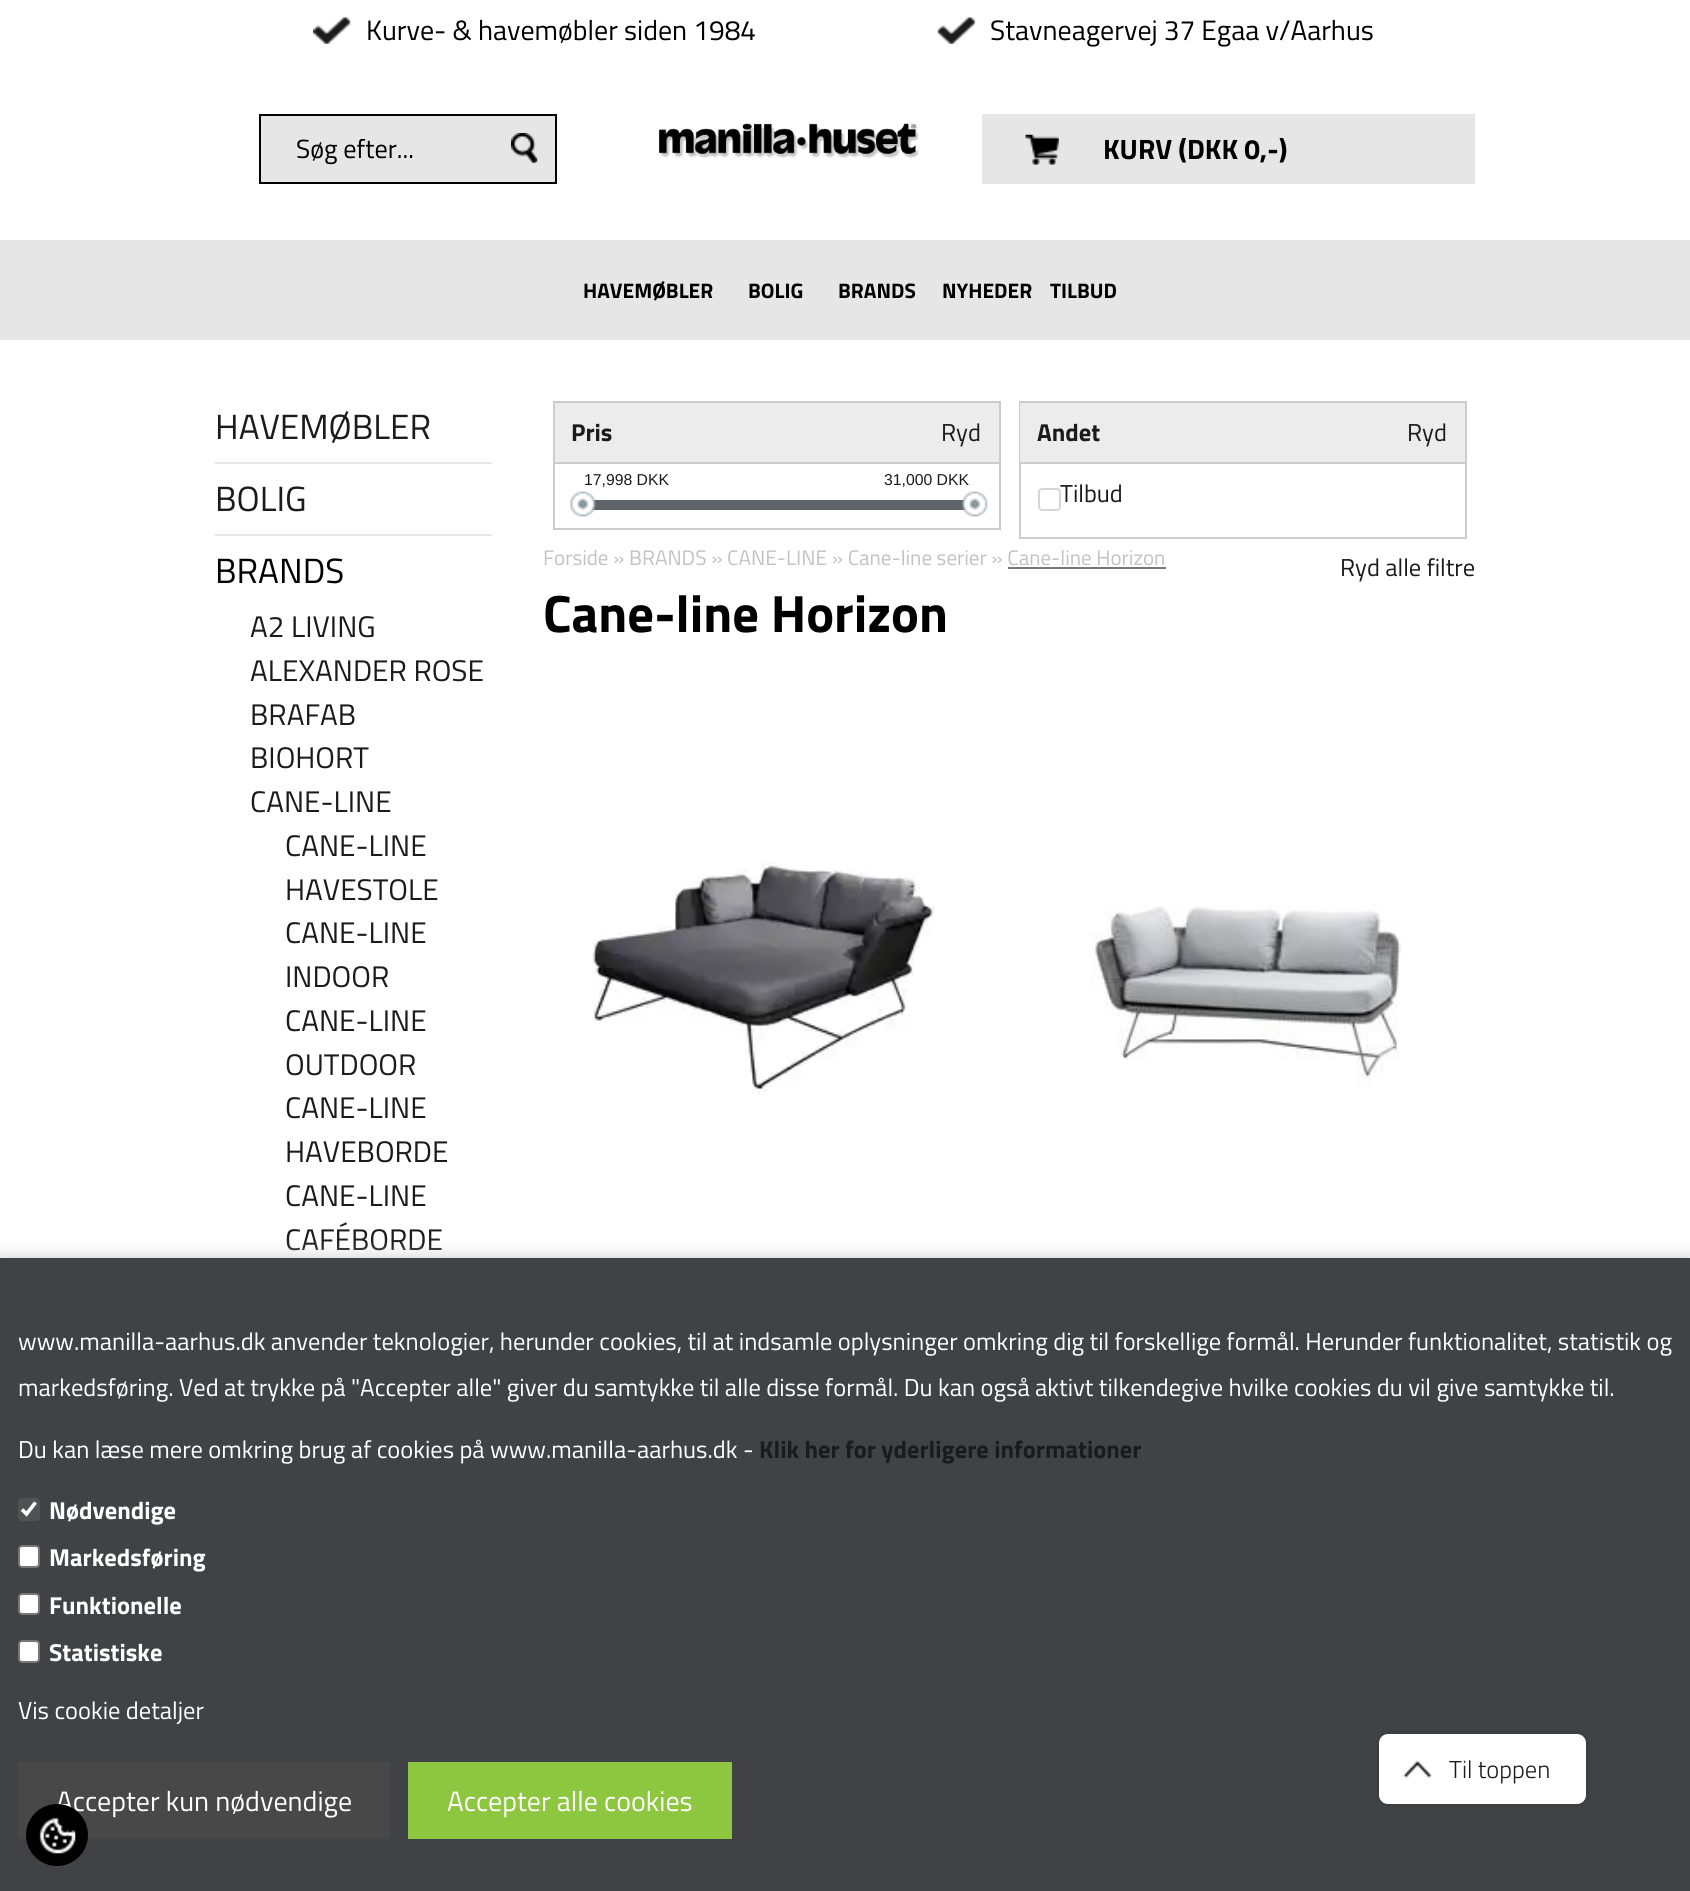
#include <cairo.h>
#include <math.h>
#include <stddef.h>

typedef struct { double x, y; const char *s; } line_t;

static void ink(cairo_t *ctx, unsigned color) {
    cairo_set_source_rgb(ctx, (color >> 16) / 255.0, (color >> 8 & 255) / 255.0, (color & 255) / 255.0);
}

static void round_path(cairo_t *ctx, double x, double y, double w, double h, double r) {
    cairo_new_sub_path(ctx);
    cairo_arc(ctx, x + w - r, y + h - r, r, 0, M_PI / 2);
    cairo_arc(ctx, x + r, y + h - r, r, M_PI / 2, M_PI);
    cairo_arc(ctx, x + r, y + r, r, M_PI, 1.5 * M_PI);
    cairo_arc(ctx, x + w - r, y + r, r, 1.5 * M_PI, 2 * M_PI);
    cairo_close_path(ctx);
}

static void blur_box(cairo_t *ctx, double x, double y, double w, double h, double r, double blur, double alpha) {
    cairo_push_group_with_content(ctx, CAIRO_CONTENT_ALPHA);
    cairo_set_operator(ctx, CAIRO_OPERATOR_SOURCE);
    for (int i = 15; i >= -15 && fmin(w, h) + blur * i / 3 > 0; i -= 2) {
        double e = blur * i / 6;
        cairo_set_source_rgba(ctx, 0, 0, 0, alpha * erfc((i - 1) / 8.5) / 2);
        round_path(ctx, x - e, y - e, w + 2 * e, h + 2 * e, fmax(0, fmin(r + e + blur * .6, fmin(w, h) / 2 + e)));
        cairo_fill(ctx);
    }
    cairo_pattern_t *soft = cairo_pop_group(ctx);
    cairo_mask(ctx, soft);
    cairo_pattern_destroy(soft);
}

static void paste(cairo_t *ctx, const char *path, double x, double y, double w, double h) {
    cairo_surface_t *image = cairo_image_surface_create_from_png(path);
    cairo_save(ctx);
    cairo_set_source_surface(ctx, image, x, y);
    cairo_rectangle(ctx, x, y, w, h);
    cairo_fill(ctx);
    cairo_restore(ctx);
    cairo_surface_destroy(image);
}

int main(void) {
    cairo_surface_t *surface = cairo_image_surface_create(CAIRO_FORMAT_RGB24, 1690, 1891);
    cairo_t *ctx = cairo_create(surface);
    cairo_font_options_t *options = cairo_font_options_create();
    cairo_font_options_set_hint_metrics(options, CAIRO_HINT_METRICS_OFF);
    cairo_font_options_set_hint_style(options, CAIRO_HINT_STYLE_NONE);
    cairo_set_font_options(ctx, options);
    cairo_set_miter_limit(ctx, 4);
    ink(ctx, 0xFFFFFF);
    cairo_paint(ctx);
    paste(ctx, "media/1.png", 313, 16, 38, 28);
    cairo_select_font_face(ctx, "Titillium Web", CAIRO_FONT_SLANT_NORMAL, CAIRO_FONT_WEIGHT_NORMAL);
    cairo_set_font_size(ctx, 28);
    ink(ctx, 0x000000);
    cairo_move_to(ctx, 366, 40);
    cairo_show_text(ctx, "Kurve- & havemøbler siden 1984");
    paste(ctx, "media/2.png", 937, 16, 39, 28);
    cairo_move_to(ctx, 990, 40);
    cairo_show_text(ctx, "Stavneagervej 37 Egaa v/Aarhus");
    ink(ctx, 0xE6E6E6);
    cairo_rectangle(ctx, 261, 116, 294, 66);
    cairo_fill(ctx);
    paste(ctx, "media/3.png", 511, 133, 27, 30);
    cairo_rectangle(ctx, 260, 115, 296, 68);
    ink(ctx, 0x000000);
    cairo_stroke(ctx);
    cairo_set_font_size(ctx, 26.25);
    cairo_move_to(ctx, 296, 158);
    cairo_show_text(ctx, "Søg efter...");
    paste(ctx, "media/4.png", 659, 123, 260, 35);
    ink(ctx, 0xE6E6E6);
    cairo_rectangle(ctx, 982, 114, 493, 70);
    cairo_fill(ctx);
    paste(ctx, "media/5.png", 1025, 134, 34, 31);
    cairo_select_font_face(ctx, "Titillium Web", CAIRO_FONT_SLANT_NORMAL, CAIRO_FONT_WEIGHT_BOLD);
    cairo_set_font_size(ctx, 28);
    ink(ctx, 0x000000);
    cairo_move_to(ctx, 1103, 159);
    cairo_show_text(ctx, "KURV (DKK 0,-)");
    ink(ctx, 0xE6E6E6);
    cairo_rectangle(ctx, 0, 240, 1690, 100);
    cairo_fill(ctx);
    cairo_set_font_size(ctx, 21);
    ink(ctx, 0x000000);
    {
        static const line_t items[] = {
            {583, 298, "HAVEMØBLER"},
            {748, 298, "BOLIG"},
            {838, 298, "BRANDS"},
            {942, 298, "NYHEDER"},
            {1050, 298, "TILBUD"},
        };
        for (size_t i = 0; i < sizeof items / sizeof *items; i++) {
            cairo_move_to(ctx, items[i].x, items[i].y);
            cairo_show_text(ctx, items[i].s);
        }
    }
    ink(ctx, 0xE8E7E7);
    cairo_rectangle(ctx, 215, 462, 277, 2);
    cairo_fill(ctx);
    cairo_select_font_face(ctx, "Titillium Web", CAIRO_FONT_SLANT_NORMAL, CAIRO_FONT_WEIGHT_NORMAL);
    cairo_set_font_size(ctx, 35);
    ink(ctx, 0x1B1B1B);
    cairo_move_to(ctx, 215, 439);
    cairo_show_text(ctx, "HAVEMØBLER");
    ink(ctx, 0xE8E7E7);
    cairo_rectangle(ctx, 215, 534, 277, 2);
    cairo_fill(ctx);
    ink(ctx, 0x1B1B1B);
    cairo_move_to(ctx, 215, 511);
    cairo_show_text(ctx, "BOLIG");
    ink(ctx, 0x000000);
    cairo_move_to(ctx, 215, 583);
    cairo_show_text(ctx, "BRANDS");
    cairo_set_font_size(ctx, 29.75);
    ink(ctx, 0x1B1B1B);
    {
        static const line_t items[] = {
            {250, 637, "A2 LIVING"},
            {250, 681, "ALEXANDER ROSE"},
            {250, 725, "BRAFAB"},
            {250, 768, "BIOHORT"},
            {250, 812, "CANE-LINE"},
            {285, 856, "CANE-LINE"},
            {285, 900, "HAVESTOLE"},
            {285, 943, "CANE-LINE"},
            {285, 987, "INDOOR"},
            {285, 1031, "CANE-LINE"},
            {285, 1075, "OUTDOOR"},
            {285, 1118, "CANE-LINE"},
            {285, 1162, "HAVEBORDE"},
            {285, 1206, "CANE-LINE"},
            {285, 1250, "CAFÉBORDE"},
        };
        for (size_t i = 0; i < sizeof items / sizeof *items; i++) {
            cairo_move_to(ctx, items[i].x, items[i].y);
            cairo_show_text(ctx, items[i].s);
        }
    }
    cairo_rectangle(ctx, 554, 402, 446, 127);
    ink(ctx, 0xCCCCCC);
    cairo_stroke(ctx);
    ink(ctx, 0xECECEC);
    cairo_rectangle(ctx, 555, 403, 444, 59);
    cairo_fill(ctx);
    ink(ctx, 0xCCCCCC);
    cairo_rectangle(ctx, 555, 462, 444, 2);
    cairo_fill(ctx);
    cairo_select_font_face(ctx, "Titillium Web", CAIRO_FONT_SLANT_NORMAL, CAIRO_FONT_WEIGHT_BOLD);
    cairo_set_font_size(ctx, 24.5);
    ink(ctx, 0x1B1B1B);
    cairo_move_to(ctx, 571, 441);
    cairo_show_text(ctx, "Pris");
    cairo_select_font_face(ctx, "Titillium Web", CAIRO_FONT_SLANT_NORMAL, CAIRO_FONT_WEIGHT_NORMAL);
    cairo_move_to(ctx, 941, 441);
    cairo_show_text(ctx, "Ryd");
    cairo_select_font_face(ctx, "Liberation Sans", CAIRO_FONT_SLANT_NORMAL, CAIRO_FONT_WEIGHT_NORMAL);
    cairo_set_font_size(ctx, 15.75);
    cairo_move_to(ctx, 584, 485);
    cairo_show_text(ctx, "17,998 DKK");
    cairo_move_to(ctx, 884, 485);
    cairo_show_text(ctx, "31,000 DKK");
    ink(ctx, 0x5E646A);
    cairo_rectangle(ctx, 591, 500, 376, 10);
    cairo_fill(ctx);
    paste(ctx, "media/6.png", 570, 491, 26, 26);
    paste(ctx, "media/7.png", 962, 491, 26, 26);
    cairo_rectangle(ctx, 1020, 402, 446, 136);
    ink(ctx, 0xCCCCCC);
    cairo_stroke(ctx);
    ink(ctx, 0xECECEC);
    cairo_rectangle(ctx, 1020, 403, 445, 59);
    cairo_fill(ctx);
    ink(ctx, 0xCCCCCC);
    cairo_rectangle(ctx, 1020, 462, 445, 2);
    cairo_fill(ctx);
    cairo_select_font_face(ctx, "Titillium Web", CAIRO_FONT_SLANT_NORMAL, CAIRO_FONT_WEIGHT_BOLD);
    cairo_set_font_size(ctx, 24.5);
    ink(ctx, 0x1B1B1B);
    cairo_move_to(ctx, 1037, 441);
    cairo_show_text(ctx, "Andet");
    cairo_select_font_face(ctx, "Titillium Web", CAIRO_FONT_SLANT_NORMAL, CAIRO_FONT_WEIGHT_NORMAL);
    cairo_move_to(ctx, 1407, 441);
    cairo_show_text(ctx, "Ryd");
    round_path(ctx, 1039, 489, 21, 21, 3);
    ink(ctx, 0xD6D6D6);
    cairo_stroke(ctx);
    ink(ctx, 0x1B1B1B);
    cairo_move_to(ctx, 1060, 502);
    cairo_show_text(ctx, "Tilbud");
    cairo_move_to(ctx, 1340, 576);
    cairo_show_text(ctx, "Ryd alle filtre");
    cairo_set_font_size(ctx, 21);
    ink(ctx, 0xC2C2C2);
    cairo_move_to(ctx, 543, 565);
    cairo_show_text(ctx, "Forside » BRANDS » CANE-LINE » Cane-line serier » Cane-line Horizon");
    ink(ctx, 0x767979);
    cairo_rectangle(ctx, 1008, 567, 158, 2);
    cairo_fill(ctx);
    cairo_select_font_face(ctx, "Titillium Web", CAIRO_FONT_SLANT_NORMAL, CAIRO_FONT_WEIGHT_BOLD);
    cairo_set_font_size(ctx, 52.5);
    ink(ctx, 0x000000);
    cairo_move_to(ctx, 543, 632);
    cairo_show_text(ctx, "Cane-line Horizon");
    paste(ctx, "media/8.png", 592, 862, 343, 232);
    paste(ctx, "media/9.png", 1090, 905, 312, 182);
    ink(ctx, 0xCCCCCC);
    blur_box(ctx, 0, 1258, 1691, 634, 0, 9, 1);
    ink(ctx, 0x404246);
    cairo_rectangle(ctx, 0, 1258, 1690, 633);
    cairo_fill(ctx);
    cairo_select_font_face(ctx, "Titillium Web", CAIRO_FONT_SLANT_NORMAL, CAIRO_FONT_WEIGHT_NORMAL);
    cairo_set_font_size(ctx, 24.5);
    ink(ctx, 0xFFFFFF);
    {
        static const line_t items[] = {
            {18, 1350, "www.manilla-aarhus.dk anvender teknologier, herunder cookies, til at indsamle oplysninger omkring dig til forskellige formål. Herunder funktionalitet, statistik og"},
            {18, 1396, "markedsføring. Ved at trykke på \"Accepter alle\" giver du samtykke til alle disse formål. Du kan også aktivt tilkendegive hvilke cookies du vil give samtykke til."},
            {18, 1458, "Du kan læse mere omkring brug af cookies på www.manilla-aarhus.dk -"},
        };
        for (size_t i = 0; i < sizeof items / sizeof *items; i++) {
            cairo_move_to(ctx, items[i].x, items[i].y);
            cairo_show_text(ctx, items[i].s);
        }
    }
    cairo_select_font_face(ctx, "Titillium Web", CAIRO_FONT_SLANT_NORMAL, CAIRO_FONT_WEIGHT_BOLD);
    ink(ctx, 0x1B1B1B);
    cairo_move_to(ctx, 759, 1458);
    cairo_show_text(ctx, "Klik her for yderligere informationer");
    ink(ctx, 0x505254);
    round_path(ctx, 18, 1498, 22, 23, 4);
    cairo_fill(ctx);
    cairo_new_path(ctx);
    cairo_move_to(ctx, 22, 1509.5);
    cairo_line_to(ctx, 26.5, 1514);
    cairo_line_to(ctx, 35.5, 1502.5);
    ink(ctx, 0xFFFFFF);
    cairo_set_line_width(ctx, 3.6);
    cairo_stroke(ctx);
    cairo_move_to(ctx, 49, 1519);
    cairo_show_text(ctx, "Nødvendige");
    round_path(ctx, 19, 1546, 20, 21, 3);
    cairo_fill_preserve(ctx);
    ink(ctx, 0x767676);
    cairo_set_line_width(ctx, 2);
    cairo_stroke(ctx);
    ink(ctx, 0xFFFFFF);
    cairo_move_to(ctx, 49, 1566);
    cairo_show_text(ctx, "Markedsføring");
    round_path(ctx, 19, 1594, 20, 20, 3);
    cairo_fill_preserve(ctx);
    ink(ctx, 0x767676);
    cairo_stroke(ctx);
    ink(ctx, 0xFFFFFF);
    cairo_move_to(ctx, 49, 1614);
    cairo_show_text(ctx, "Funktionelle");
    round_path(ctx, 19, 1641, 20, 21, 3);
    cairo_fill_preserve(ctx);
    ink(ctx, 0x767676);
    cairo_stroke(ctx);
    ink(ctx, 0xFFFFFF);
    cairo_move_to(ctx, 49, 1661);
    cairo_show_text(ctx, "Statistiske");
    cairo_select_font_face(ctx, "Titillium Web", CAIRO_FONT_SLANT_NORMAL, CAIRO_FONT_WEIGHT_NORMAL);
    cairo_move_to(ctx, 18, 1719);
    cairo_show_text(ctx, "Vis cookie detaljer");
    ink(ctx, 0x484848);
    cairo_rectangle(ctx, 18, 1762, 372, 77);
    cairo_fill(ctx);
    cairo_set_font_size(ctx, 28);
    ink(ctx, 0xFFFFFF);
    cairo_move_to(ctx, 56, 1811);
    cairo_show_text(ctx, "Accepter kun nødvendige");
    ink(ctx, 0x8DC63F);
    cairo_rectangle(ctx, 408, 1762, 324, 77);
    cairo_fill(ctx);
    ink(ctx, 0xFFFFFF);
    cairo_move_to(ctx, 447, 1811);
    cairo_show_text(ctx, "Accepter alle cookies");
    ink(ctx, 0x000000);
    blur_box(ctx, 1379, 1734, 207, 70, 9, 2.5, 0.2);
    ink(ctx, 0xFFFFFF);
    round_path(ctx, 1379, 1734, 207, 70, 9);
    cairo_fill(ctx);
    paste(ctx, "media/10.png", 1403, 1760, 29, 19);
    cairo_select_font_face(ctx, "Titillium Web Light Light", CAIRO_FONT_SLANT_NORMAL, CAIRO_FONT_WEIGHT_NORMAL);
    cairo_set_font_size(ctx, 24.5);
    ink(ctx, 0x1B1B1B);
    cairo_move_to(ctx, 1449, 1778);
    cairo_show_text(ctx, "Til toppen");
    ink(ctx, 0x000000);
    cairo_new_path(ctx);
    cairo_arc(ctx, 57, 1835, 31, 0, 2 * M_PI);
    cairo_fill(ctx);
    paste(ctx, "media/11.png", 39, 1817, 37, 37);
    cairo_surface_write_to_png(surface, "image.png");
    cairo_font_options_destroy(options);
    cairo_destroy(ctx);
    cairo_surface_destroy(surface);
    return 0;
}
